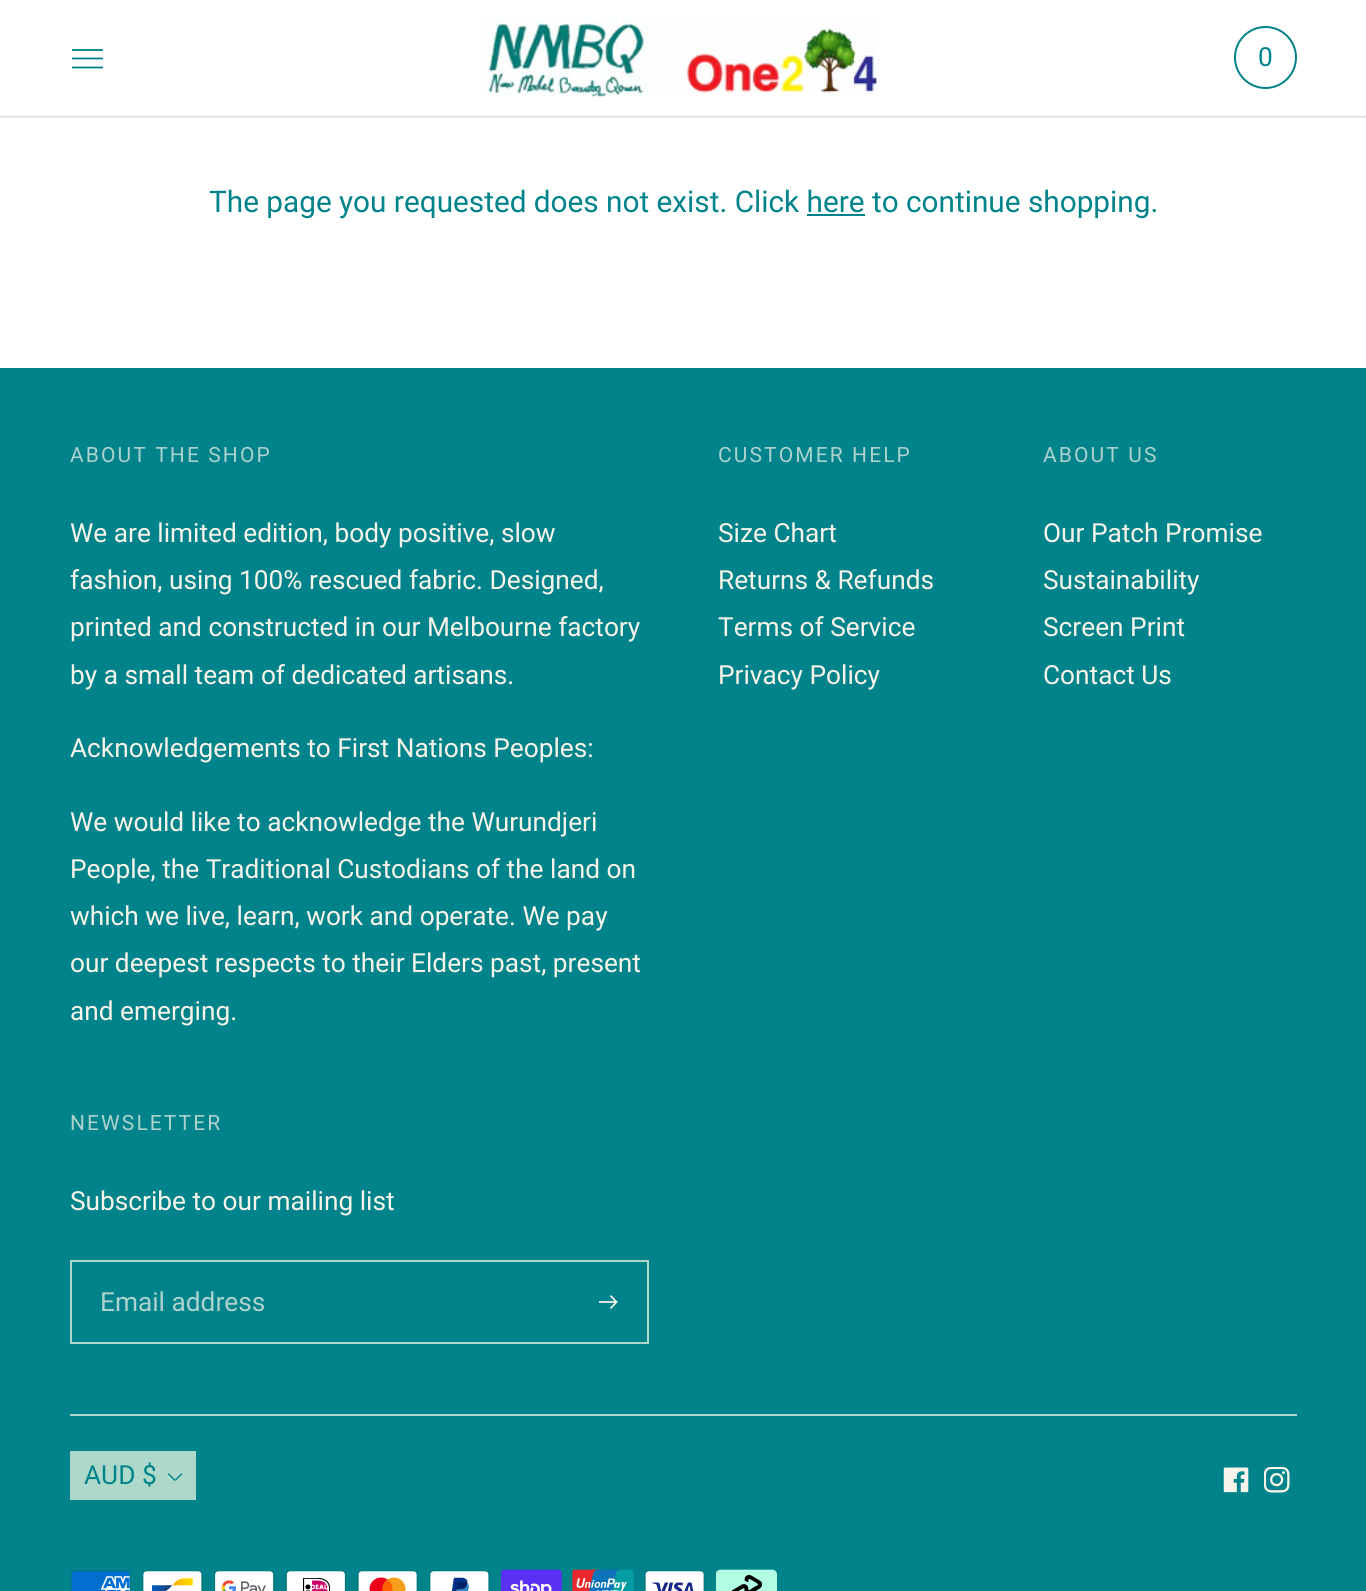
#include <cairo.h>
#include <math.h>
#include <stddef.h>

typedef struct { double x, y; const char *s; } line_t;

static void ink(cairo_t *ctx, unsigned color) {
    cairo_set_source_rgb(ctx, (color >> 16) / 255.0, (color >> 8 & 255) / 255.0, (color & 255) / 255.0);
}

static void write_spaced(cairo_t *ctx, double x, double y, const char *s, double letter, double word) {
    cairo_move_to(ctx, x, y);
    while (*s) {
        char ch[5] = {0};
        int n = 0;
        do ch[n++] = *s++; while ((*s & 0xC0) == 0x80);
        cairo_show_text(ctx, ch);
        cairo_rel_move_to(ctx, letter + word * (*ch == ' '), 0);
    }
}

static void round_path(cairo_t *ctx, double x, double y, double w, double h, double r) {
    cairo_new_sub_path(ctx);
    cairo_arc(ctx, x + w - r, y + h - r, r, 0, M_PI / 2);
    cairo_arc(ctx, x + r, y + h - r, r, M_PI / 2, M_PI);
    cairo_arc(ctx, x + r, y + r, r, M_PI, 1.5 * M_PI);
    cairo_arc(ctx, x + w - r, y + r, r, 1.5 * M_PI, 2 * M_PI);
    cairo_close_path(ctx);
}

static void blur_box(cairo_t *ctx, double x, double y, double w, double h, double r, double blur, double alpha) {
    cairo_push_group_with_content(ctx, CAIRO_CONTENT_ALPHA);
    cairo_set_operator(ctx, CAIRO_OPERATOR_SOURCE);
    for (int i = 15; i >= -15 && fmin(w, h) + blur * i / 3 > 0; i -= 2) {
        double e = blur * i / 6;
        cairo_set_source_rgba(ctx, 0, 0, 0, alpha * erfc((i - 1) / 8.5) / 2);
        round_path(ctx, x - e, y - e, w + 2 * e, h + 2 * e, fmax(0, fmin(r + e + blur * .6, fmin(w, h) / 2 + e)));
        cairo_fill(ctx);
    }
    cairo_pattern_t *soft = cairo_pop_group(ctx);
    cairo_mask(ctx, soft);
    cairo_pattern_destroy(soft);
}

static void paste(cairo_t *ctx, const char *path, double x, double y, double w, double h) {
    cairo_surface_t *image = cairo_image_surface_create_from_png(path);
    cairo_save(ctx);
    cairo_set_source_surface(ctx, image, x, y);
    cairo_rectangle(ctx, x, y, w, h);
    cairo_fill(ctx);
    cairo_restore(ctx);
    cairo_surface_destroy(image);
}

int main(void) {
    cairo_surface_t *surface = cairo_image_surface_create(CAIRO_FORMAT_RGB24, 1366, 1591);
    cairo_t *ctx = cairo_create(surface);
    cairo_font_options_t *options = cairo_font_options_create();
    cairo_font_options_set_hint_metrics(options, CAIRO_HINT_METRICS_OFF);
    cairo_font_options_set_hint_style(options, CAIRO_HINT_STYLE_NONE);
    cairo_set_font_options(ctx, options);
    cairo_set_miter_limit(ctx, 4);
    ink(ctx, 0xFFFFFF);
    cairo_paint(ctx);
    ink(ctx, 0x000000);
    blur_box(ctx, 0, 2, 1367, 115, 0, 1, 0.2);
    ink(ctx, 0xFFFFFF);
    cairo_rectangle(ctx, 0, 0, 1366, 116);
    cairo_fill(ctx);
    cairo_new_path(ctx);
    cairo_move_to(ctx, 72, 50);
    cairo_line_to(ctx, 103, 50);
    cairo_move_to(ctx, 72, 58.5);
    cairo_line_to(ctx, 103, 58.5);
    cairo_move_to(ctx, 72, 67.5);
    cairo_line_to(ctx, 103, 67.5);
    ink(ctx, 0x00838A);
    cairo_set_line_width(ctx, 1.8);
    cairo_stroke(ctx);
    paste(ctx, "media/1.png", 486, 17, 392, 80);
    cairo_arc(ctx, 1265.5, 57.5, 30.5, 0, 2 * M_PI);
    cairo_set_line_width(ctx, 2);
    cairo_stroke(ctx);
    cairo_select_font_face(ctx, "Roboto", CAIRO_FONT_SLANT_NORMAL, CAIRO_FONT_WEIGHT_NORMAL);
    cairo_set_font_size(ctx, 26.25);
    cairo_move_to(ctx, 1258, 66);
    cairo_show_text(ctx, "0");
    cairo_set_font_size(ctx, 29.75);
    cairo_move_to(ctx, 209, 212);
    cairo_show_text(ctx, "The page you requested does not exist. Click here to continue shopping.");
    cairo_rectangle(ctx, 807, 214, 58, 2);
    cairo_fill(ctx);
    cairo_rectangle(ctx, 0, 368, 1366, 1223);
    cairo_fill(ctx);
    cairo_set_font_size(ctx, 21);
    ink(ctx, 0xAED2CD);
    write_spaced(ctx, 70, 462, "ABOUT THE SHOP", 2.1, 0);
    cairo_set_font_size(ctx, 26.25);
    ink(ctx, 0xF9F4EA);
    {
        static const line_t items[] = {
            {70, 542, "We are limited edition, body positive, slow"},
            {70, 589, "fashion, using 100% rescued fabric. Designed,"},
            {70, 636, "printed and constructed in our Melbourne factory"},
            {70, 684, "by a small team of dedicated artisans."},
            {70, 757, "Acknowledgements to First Nations Peoples:"},
            {70, 831, "We would like to acknowledge the Wurundjeri"},
            {70, 878, "People, the Traditional Custodians of the land on"},
            {70, 925, "which we live, learn, work and operate. We pay"},
            {70, 972, "our deepest respects to their Elders past, present"},
            {70, 1020, "and emerging."},
        };
        for (size_t i = 0; i < sizeof items / sizeof *items; i++) {
            cairo_move_to(ctx, items[i].x, items[i].y);
            cairo_show_text(ctx, items[i].s);
        }
    }
    cairo_set_font_size(ctx, 21);
    ink(ctx, 0xAED2CD);
    write_spaced(ctx, 718, 462, "CUSTOMER HELP", 2.1, 0);
    cairo_set_font_size(ctx, 26.25);
    ink(ctx, 0xF9F4EA);
    {
        static const line_t items[] = {
            {718, 542, "Size Chart"},
            {718, 589, "Returns & Refunds"},
            {718, 636, "Terms of Service"},
            {718, 684, "Privacy Policy"},
        };
        for (size_t i = 0; i < sizeof items / sizeof *items; i++) {
            cairo_move_to(ctx, items[i].x, items[i].y);
            cairo_show_text(ctx, items[i].s);
        }
    }
    cairo_set_font_size(ctx, 21);
    ink(ctx, 0xAED2CD);
    write_spaced(ctx, 1043, 462, "ABOUT US", 2.1, 0);
    cairo_set_font_size(ctx, 26.25);
    ink(ctx, 0xF9F4EA);
    {
        static const line_t items[] = {
            {1043, 542, "Our Patch Promise"},
            {1043, 589, "Sustainability"},
            {1043, 636, "Screen Print"},
            {1043, 684, "Contact Us"},
        };
        for (size_t i = 0; i < sizeof items / sizeof *items; i++) {
            cairo_move_to(ctx, items[i].x, items[i].y);
            cairo_show_text(ctx, items[i].s);
        }
    }
    cairo_set_font_size(ctx, 21);
    ink(ctx, 0xAED2CD);
    write_spaced(ctx, 70, 1130, "NEWSLETTER", 2.1, 0);
    cairo_set_font_size(ctx, 26.25);
    ink(ctx, 0xF9F4EA);
    cairo_move_to(ctx, 70, 1210);
    cairo_show_text(ctx, "Subscribe to our mailing list");
    cairo_rectangle(ctx, 71, 1261, 577, 82);
    ink(ctx, 0xAED8CA);
    cairo_stroke(ctx);
    ink(ctx, 0xAED2CD);
    cairo_move_to(ctx, 100, 1311);
    cairo_show_text(ctx, "Email address");
    paste(ctx, "media/2.png", 599, 1295, 19, 14);
    ink(ctx, 0xAED8CA);
    cairo_rectangle(ctx, 70, 1414, 1227, 2);
    cairo_fill(ctx);
    cairo_rectangle(ctx, 70, 1451, 126, 49);
    cairo_fill(ctx);
    ink(ctx, 0x00838A);
    cairo_move_to(ctx, 84, 1484);
    cairo_show_text(ctx, "AUD $");
    cairo_new_path(ctx);
    cairo_move_to(ctx, 168.5, 1474);
    cairo_line_to(ctx, 174.5, 1480);
    cairo_line_to(ctx, 175.5, 1480);
    cairo_line_to(ctx, 181.5, 1474);
    cairo_set_line_width(ctx, 1.4);
    cairo_set_line_cap(ctx, CAIRO_LINE_CAP_ROUND);
    cairo_set_line_join(ctx, CAIRO_LINE_JOIN_ROUND);
    cairo_stroke(ctx);
    paste(ctx, "media/3.png", 1223, 1467, 26, 26);
    paste(ctx, "media/4.png", 1264, 1467, 26, 26);
    paste(ctx, "media/5.png", 70, 1570, 61, 21);
    paste(ctx, "media/6.png", 142, 1570, 61, 21);
    paste(ctx, "media/7.png", 214, 1570, 61, 21);
    paste(ctx, "media/8.png", 285, 1570, 62, 21);
    paste(ctx, "media/9.png", 357, 1570, 61, 21);
    paste(ctx, "media/10.png", 429, 1570, 61, 21);
    paste(ctx, "media/11.png", 501, 1569, 61, 22);
    paste(ctx, "media/12.png", 572, 1569, 62, 22);
    paste(ctx, "media/13.png", 644, 1570, 61, 21);
    paste(ctx, "media/14.png", 716, 1569, 61, 22);
    cairo_surface_write_to_png(surface, "image.png");
    cairo_font_options_destroy(options);
    cairo_destroy(ctx);
    cairo_surface_destroy(surface);
    return 0;
}
